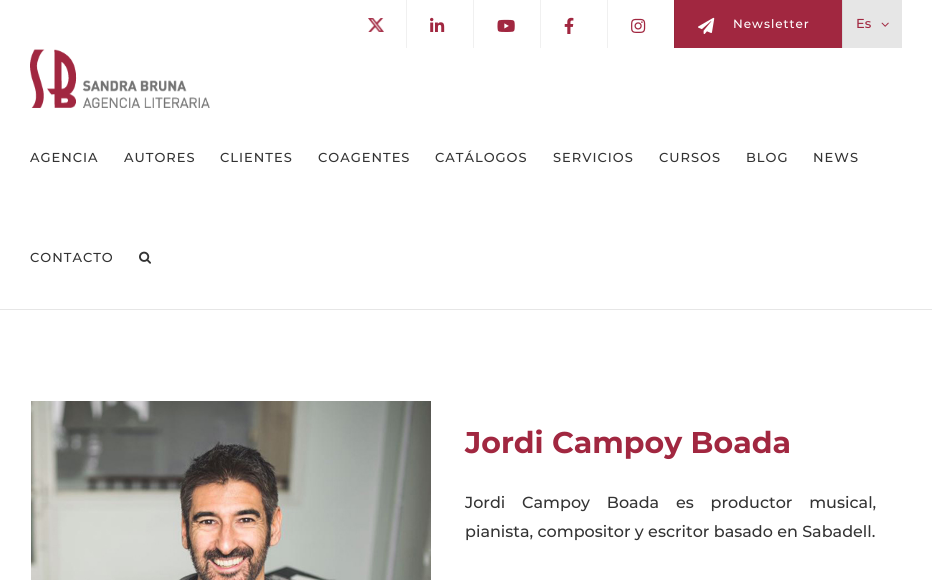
#include <cairo.h>
#include <math.h>
#include <stddef.h>

typedef struct { double x, y; const char *s; } line_t;

static void ink(cairo_t *ctx, unsigned color) {
    cairo_set_source_rgb(ctx, (color >> 16) / 255.0, (color >> 8 & 255) / 255.0, (color & 255) / 255.0);
}

static void write_spaced(cairo_t *ctx, double x, double y, const char *s, double letter, double word) {
    cairo_move_to(ctx, x, y);
    while (*s) {
        char ch[5] = {0};
        int n = 0;
        do ch[n++] = *s++; while ((*s & 0xC0) == 0x80);
        cairo_show_text(ctx, ch);
        cairo_rel_move_to(ctx, letter + word * (*ch == ' '), 0);
    }
}

static void paste(cairo_t *ctx, const char *path, double x, double y, double w, double h) {
    cairo_surface_t *image = cairo_image_surface_create_from_png(path);
    cairo_save(ctx);
    cairo_set_source_surface(ctx, image, x, y);
    cairo_rectangle(ctx, x, y, w, h);
    cairo_fill(ctx);
    cairo_restore(ctx);
    cairo_surface_destroy(image);
}

int main(void) {
    cairo_surface_t *surface = cairo_image_surface_create(CAIRO_FORMAT_RGB24, 932, 580);
    cairo_t *ctx = cairo_create(surface);
    cairo_font_options_t *options = cairo_font_options_create();
    cairo_font_options_set_hint_metrics(options, CAIRO_HINT_METRICS_OFF);
    cairo_font_options_set_hint_style(options, CAIRO_HINT_STYLE_NONE);
    cairo_set_font_options(ctx, options);
    cairo_set_miter_limit(ctx, 4);
    ink(ctx, 0xFFFFFF);
    cairo_paint(ctx);
    paste(ctx, "media/1.png", 368, 18, 16, 14);
    ink(ctx, 0xF0F0F0);
    cairo_rectangle(ctx, 406, 0, 1, 48);
    cairo_fill(ctx);
    paste(ctx, "media/2.png", 430, 17, 15, 15);
    cairo_rectangle(ctx, 473, 0, 1, 48);
    cairo_fill(ctx);
    paste(ctx, "media/3.png", 497, 19, 18, 13);
    cairo_rectangle(ctx, 540, 0, 1, 48);
    cairo_fill(ctx);
    paste(ctx, "media/4.png", 564, 17, 10, 17);
    cairo_rectangle(ctx, 607, 0, 1, 48);
    cairo_fill(ctx);
    paste(ctx, "media/5.png", 631, 18, 15, 15);
    ink(ctx, 0xA12740);
    cairo_rectangle(ctx, 675, 0, 167, 48);
    cairo_fill(ctx);
    ink(ctx, 0x97253C);
    cairo_rectangle(ctx, 674, 0, 1, 48);
    cairo_fill(ctx);
    paste(ctx, "media/6.png", 698, 17, 17, 17);
    cairo_select_font_face(ctx, "Montserrat Medium", CAIRO_FONT_SLANT_NORMAL, CAIRO_FONT_WEIGHT_NORMAL);
    cairo_set_font_size(ctx, 12);
    ink(ctx, 0xFFFFFF);
    write_spaced(ctx, 733, 28, "Newsletter", 1, 0);
    ink(ctx, 0xE6E6E6);
    cairo_rectangle(ctx, 843, 0, 59, 48);
    cairo_fill(ctx);
    ink(ctx, 0xD8D8D8);
    cairo_rectangle(ctx, 842, 0, 1, 48);
    cairo_fill(ctx);
    cairo_set_font_size(ctx, 13);
    ink(ctx, 0xA12740);
    cairo_move_to(ctx, 856, 28);
    cairo_show_text(ctx, "Es");
    paste(ctx, "media/7.png", 881, 22, 8, 5);
    paste(ctx, "media/8.png", 30, 49, 180, 59);
    ink(ctx, 0x333333);
    {
        static const line_t items[] = {
            {30, 162, "AGENCIA"},
            {124, 162, "AUTORES"},
            {220, 162, "CLIENTES"},
            {318, 162, "COAGENTES"},
            {435, 162, "CATÁLOGOS"},
            {553, 162, "SERVICIOS"},
            {659, 162, "CURSOS"},
            {746, 162, "BLOG"},
            {813, 162, "NEWS"},
            {30, 262, "CONTACTO"},
        };
        for (size_t i = 0; i < sizeof items / sizeof *items; i++) {
            write_spaced(ctx, items[i].x, items[i].y, items[i].s, 1, 0);
        }
    }
    paste(ctx, "media/9.png", 139, 251, 12, 13);
    ink(ctx, 0xE6E6E6);
    cairo_rectangle(ctx, 0, 309, 932, 1);
    cairo_fill(ctx);
    paste(ctx, "media/10.png", 31, 401, 400, 179);
    cairo_select_font_face(ctx, "Montserrat", CAIRO_FONT_SLANT_NORMAL, CAIRO_FONT_WEIGHT_BOLD);
    cairo_set_font_size(ctx, 30);
    ink(ctx, 0xA12740);
    cairo_move_to(ctx, 465, 453);
    cairo_show_text(ctx, "Jordi Campoy Boada");
    cairo_select_font_face(ctx, "Montserrat Medium", CAIRO_FONT_SLANT_NORMAL, CAIRO_FONT_WEIGHT_NORMAL);
    cairo_set_font_size(ctx, 16);
    ink(ctx, 0x333333);
    write_spaced(ctx, 465, 508, "Jordi Campoy Boada es productor musical,", 0, 12.5);
    cairo_move_to(ctx, 465, 537);
    cairo_show_text(ctx, "pianista, compositor y escritor basado en Sabadell.");
    cairo_surface_write_to_png(surface, "image.png");
    cairo_font_options_destroy(options);
    cairo_destroy(ctx);
    cairo_surface_destroy(surface);
    return 0;
}
